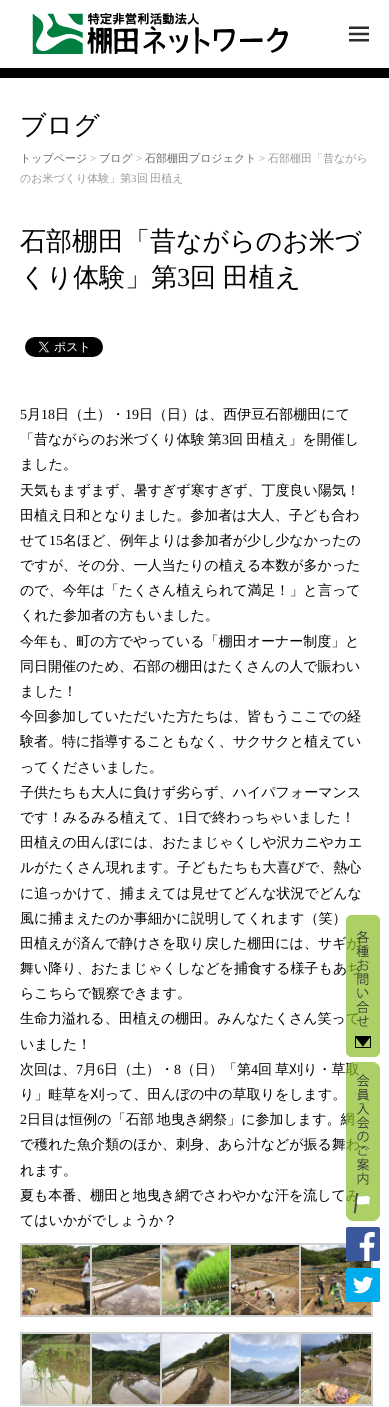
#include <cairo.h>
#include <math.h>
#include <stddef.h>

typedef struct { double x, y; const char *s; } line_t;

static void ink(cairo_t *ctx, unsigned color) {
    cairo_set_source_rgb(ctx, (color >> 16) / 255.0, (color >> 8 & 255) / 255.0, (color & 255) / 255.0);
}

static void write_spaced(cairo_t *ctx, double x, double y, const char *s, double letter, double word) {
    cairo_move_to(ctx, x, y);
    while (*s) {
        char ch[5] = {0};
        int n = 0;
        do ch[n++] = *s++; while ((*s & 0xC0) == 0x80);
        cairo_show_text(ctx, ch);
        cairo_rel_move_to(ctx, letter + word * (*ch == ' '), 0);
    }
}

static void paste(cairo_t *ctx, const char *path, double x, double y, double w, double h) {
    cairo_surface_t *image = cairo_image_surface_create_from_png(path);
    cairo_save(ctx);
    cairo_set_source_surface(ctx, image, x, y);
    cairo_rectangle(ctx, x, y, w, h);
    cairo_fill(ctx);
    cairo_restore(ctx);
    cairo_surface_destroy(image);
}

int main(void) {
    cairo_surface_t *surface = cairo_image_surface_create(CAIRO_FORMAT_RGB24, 389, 1407);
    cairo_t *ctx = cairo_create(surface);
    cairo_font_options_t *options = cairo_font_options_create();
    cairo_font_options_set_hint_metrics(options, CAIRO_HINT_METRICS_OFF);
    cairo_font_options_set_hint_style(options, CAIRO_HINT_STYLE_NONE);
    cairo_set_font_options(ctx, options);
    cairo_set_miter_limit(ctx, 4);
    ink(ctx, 0xFFFFFF);
    cairo_paint(ctx);
    ink(ctx, 0x000000);
    cairo_rectangle(ctx, 0, 68, 389, 10);
    cairo_fill(ctx);
    paste(ctx, "media/1.png", 32, 13, 256, 41);
    paste(ctx, "media/2.png", 349, 26, 20, 16);
    cairo_select_font_face(ctx, "WenQuanYi Zen Hei Medium", CAIRO_FONT_SLANT_NORMAL, CAIRO_FONT_WEIGHT_NORMAL);
    cairo_set_font_size(ctx, 26);
    cairo_move_to(ctx, 20, 134);
    cairo_show_text(ctx, "ブログ");
    cairo_set_font_size(ctx, 11);
    ink(ctx, 0x666666);
    cairo_move_to(ctx, 20, 162);
    cairo_show_text(ctx, "トップページ");
    cairo_select_font_face(ctx, "Liberation Serif", CAIRO_FONT_SLANT_NORMAL, CAIRO_FONT_WEIGHT_NORMAL);
    ink(ctx, 0x999999);
    cairo_move_to(ctx, 90, 162);
    cairo_show_text(ctx, ">");
    cairo_select_font_face(ctx, "WenQuanYi Zen Hei Medium", CAIRO_FONT_SLANT_NORMAL, CAIRO_FONT_WEIGHT_NORMAL);
    ink(ctx, 0x666666);
    cairo_move_to(ctx, 99, 162);
    cairo_show_text(ctx, "ブログ");
    cairo_select_font_face(ctx, "Liberation Serif", CAIRO_FONT_SLANT_NORMAL, CAIRO_FONT_WEIGHT_NORMAL);
    ink(ctx, 0x999999);
    cairo_move_to(ctx, 136, 162);
    cairo_show_text(ctx, ">");
    cairo_select_font_face(ctx, "WenQuanYi Zen Hei Medium", CAIRO_FONT_SLANT_NORMAL, CAIRO_FONT_WEIGHT_NORMAL);
    ink(ctx, 0x666666);
    cairo_move_to(ctx, 145, 162);
    cairo_show_text(ctx, "石部棚田プロジェクト");
    cairo_select_font_face(ctx, "Liberation Serif", CAIRO_FONT_SLANT_NORMAL, CAIRO_FONT_WEIGHT_NORMAL);
    ink(ctx, 0x999999);
    cairo_move_to(ctx, 259, 162);
    cairo_show_text(ctx, ">");
    cairo_select_font_face(ctx, "WenQuanYi Zen Hei Medium", CAIRO_FONT_SLANT_NORMAL, CAIRO_FONT_WEIGHT_NORMAL);
    cairo_move_to(ctx, 268, 162);
    cairo_show_text(ctx, "石部棚田「昔ながら");
    cairo_move_to(ctx, 20, 182);
    cairo_show_text(ctx, "のお米づくり体験」第");
    cairo_select_font_face(ctx, "Liberation Serif", CAIRO_FONT_SLANT_NORMAL, CAIRO_FONT_WEIGHT_NORMAL);
    cairo_move_to(ctx, 131, 182);
    cairo_show_text(ctx, "3");
    cairo_select_font_face(ctx, "WenQuanYi Zen Hei Medium", CAIRO_FONT_SLANT_NORMAL, CAIRO_FONT_WEIGHT_NORMAL);
    write_spaced(ctx, 137, 182, "回 田植え", 0, -1);
    cairo_set_font_size(ctx, 26);
    ink(ctx, 0x000000);
    cairo_move_to(ctx, 20, 250);
    cairo_show_text(ctx, "石部棚田「昔ながらのお米づ");
    cairo_move_to(ctx, 20, 286);
    cairo_show_text(ctx, "くり体験」第");
    cairo_select_font_face(ctx, "Liberation Serif", CAIRO_FONT_SLANT_NORMAL, CAIRO_FONT_WEIGHT_NORMAL);
    cairo_move_to(ctx, 177, 286);
    cairo_show_text(ctx, "3");
    cairo_select_font_face(ctx, "WenQuanYi Zen Hei Medium", CAIRO_FONT_SLANT_NORMAL, CAIRO_FONT_WEIGHT_NORMAL);
    write_spaced(ctx, 190, 286, "回 田植え", 0, -1);
    paste(ctx, "media/3.png", 25, 337, 78, 20);
    cairo_select_font_face(ctx, "Liberation Serif", CAIRO_FONT_SLANT_NORMAL, CAIRO_FONT_WEIGHT_NORMAL);
    cairo_set_font_size(ctx, 14);
    cairo_move_to(ctx, 20, 419);
    cairo_show_text(ctx, "5");
    cairo_select_font_face(ctx, "WenQuanYi Zen Hei Medium", CAIRO_FONT_SLANT_NORMAL, CAIRO_FONT_WEIGHT_NORMAL);
    cairo_move_to(ctx, 27, 419);
    cairo_show_text(ctx, "月");
    cairo_select_font_face(ctx, "Liberation Serif", CAIRO_FONT_SLANT_NORMAL, CAIRO_FONT_WEIGHT_NORMAL);
    cairo_move_to(ctx, 41, 419);
    cairo_show_text(ctx, "18");
    cairo_select_font_face(ctx, "WenQuanYi Zen Hei Medium", CAIRO_FONT_SLANT_NORMAL, CAIRO_FONT_WEIGHT_NORMAL);
    cairo_move_to(ctx, 55, 419);
    cairo_show_text(ctx, "日（土）・");
    cairo_select_font_face(ctx, "Liberation Serif", CAIRO_FONT_SLANT_NORMAL, CAIRO_FONT_WEIGHT_NORMAL);
    cairo_move_to(ctx, 125, 419);
    cairo_show_text(ctx, "19");
    cairo_select_font_face(ctx, "WenQuanYi Zen Hei Medium", CAIRO_FONT_SLANT_NORMAL, CAIRO_FONT_WEIGHT_NORMAL);
    cairo_move_to(ctx, 139, 419);
    cairo_show_text(ctx, "日（日）は、西伊豆石部棚田にて");
    write_spaced(ctx, 20, 444, "「昔ながらのお米づくり体験 第", 0, -1);
    cairo_select_font_face(ctx, "Liberation Serif", CAIRO_FONT_SLANT_NORMAL, CAIRO_FONT_WEIGHT_NORMAL);
    cairo_move_to(ctx, 222, 444);
    cairo_show_text(ctx, "3");
    cairo_select_font_face(ctx, "WenQuanYi Zen Hei Medium", CAIRO_FONT_SLANT_NORMAL, CAIRO_FONT_WEIGHT_NORMAL);
    write_spaced(ctx, 229, 444, "回 田植え」を開催し", 0, -1);
    {
        static const line_t items[] = {
            {20, 469, "ました。"},
            {20, 495, "天気もまずまず、暑すぎず寒すぎず、丁度良い陽気！"},
            {20, 520, "田植え日和となりました。参加者は大人、子ども合わ"},
            {20, 545, "せて"},
        };
        for (size_t i = 0; i < sizeof items / sizeof *items; i++) {
            cairo_move_to(ctx, items[i].x, items[i].y);
            cairo_show_text(ctx, items[i].s);
        }
    }
    cairo_select_font_face(ctx, "Liberation Serif", CAIRO_FONT_SLANT_NORMAL, CAIRO_FONT_WEIGHT_NORMAL);
    cairo_move_to(ctx, 49, 545);
    cairo_show_text(ctx, "15");
    cairo_select_font_face(ctx, "WenQuanYi Zen Hei Medium", CAIRO_FONT_SLANT_NORMAL, CAIRO_FONT_WEIGHT_NORMAL);
    {
        static const line_t items[] = {
            {63, 545, "名ほど、例年よりは参加者が少し少なかったの"},
            {20, 570, "ですが、その分、一人当たりの植える本数が多かった"},
            {20, 595, "ので、今年は「たくさん植えられて満足！」と言って"},
            {20, 620, "くれた参加者の方もいました。"},
            {20, 646, "今年も、町の方でやっている「棚田オーナー制度」と"},
            {20, 671, "同日開催のため、石部の棚田はたくさんの人で賑わい"},
            {20, 696, "ました！"},
            {20, 721, "今回参加していただいた方たちは、皆もうここでの経"},
            {20, 746, "験者。特に指導することもなく、サクサクと植えてい"},
            {20, 772, "ってくださいました。"},
            {20, 797, "子供たちも大人に負けず劣らず、ハイパフォーマンス"},
            {20, 822, "です！みるみる植えて、"},
        };
        for (size_t i = 0; i < sizeof items / sizeof *items; i++) {
            cairo_move_to(ctx, items[i].x, items[i].y);
            cairo_show_text(ctx, items[i].s);
        }
    }
    cairo_select_font_face(ctx, "Liberation Serif", CAIRO_FONT_SLANT_NORMAL, CAIRO_FONT_WEIGHT_NORMAL);
    cairo_move_to(ctx, 177, 822);
    cairo_show_text(ctx, "1");
    cairo_select_font_face(ctx, "WenQuanYi Zen Hei Medium", CAIRO_FONT_SLANT_NORMAL, CAIRO_FONT_WEIGHT_NORMAL);
    {
        static const line_t items[] = {
            {184, 822, "日で終わっちゃいました！"},
            {20, 847, "田植えの田んぼには、おたまじゃくしや沢カニやカエ"},
            {20, 872, "ルがたくさん現れます。子どもたちも大喜びで、熱心"},
            {20, 898, "に追っかけて、捕まえては見せてどんな状況でどんな"},
            {20, 923, "風に捕まえたのか事細かに説明してくれます（笑）"},
            {20, 948, "田植えが済んで静けさを取り戻した棚田には、サギが"},
            {20, 973, "舞い降り、おたまじゃくしなどを捕食する様子もあち"},
            {20, 998, "らこちらで観察できます。"},
            {20, 1023, "生命力溢れる、田植えの棚田。みんなたくさん笑って"},
            {20, 1049, "いました！"},
            {20, 1074, "次回は、"},
        };
        for (size_t i = 0; i < sizeof items / sizeof *items; i++) {
            cairo_move_to(ctx, items[i].x, items[i].y);
            cairo_show_text(ctx, items[i].s);
        }
    }
    cairo_select_font_face(ctx, "Liberation Serif", CAIRO_FONT_SLANT_NORMAL, CAIRO_FONT_WEIGHT_NORMAL);
    cairo_move_to(ctx, 76, 1074);
    cairo_show_text(ctx, "7");
    cairo_select_font_face(ctx, "WenQuanYi Zen Hei Medium", CAIRO_FONT_SLANT_NORMAL, CAIRO_FONT_WEIGHT_NORMAL);
    cairo_move_to(ctx, 83, 1074);
    cairo_show_text(ctx, "月");
    cairo_select_font_face(ctx, "Liberation Serif", CAIRO_FONT_SLANT_NORMAL, CAIRO_FONT_WEIGHT_NORMAL);
    cairo_move_to(ctx, 97, 1074);
    cairo_show_text(ctx, "6");
    cairo_select_font_face(ctx, "WenQuanYi Zen Hei Medium", CAIRO_FONT_SLANT_NORMAL, CAIRO_FONT_WEIGHT_NORMAL);
    cairo_move_to(ctx, 104, 1074);
    cairo_show_text(ctx, "日（土）・");
    cairo_select_font_face(ctx, "Liberation Serif", CAIRO_FONT_SLANT_NORMAL, CAIRO_FONT_WEIGHT_NORMAL);
    cairo_move_to(ctx, 174, 1074);
    cairo_show_text(ctx, "8");
    cairo_select_font_face(ctx, "WenQuanYi Zen Hei Medium", CAIRO_FONT_SLANT_NORMAL, CAIRO_FONT_WEIGHT_NORMAL);
    cairo_move_to(ctx, 181, 1074);
    cairo_show_text(ctx, "（日）「第");
    cairo_select_font_face(ctx, "Liberation Serif", CAIRO_FONT_SLANT_NORMAL, CAIRO_FONT_WEIGHT_NORMAL);
    cairo_move_to(ctx, 251, 1074);
    cairo_show_text(ctx, "4");
    cairo_select_font_face(ctx, "WenQuanYi Zen Hei Medium", CAIRO_FONT_SLANT_NORMAL, CAIRO_FONT_WEIGHT_NORMAL);
    write_spaced(ctx, 258, 1074, "回 草刈り・草取", 0, -1);
    cairo_move_to(ctx, 20, 1099);
    cairo_show_text(ctx, "り」畦草を刈って、田んぼの中の草取りをします。");
    cairo_select_font_face(ctx, "Liberation Serif", CAIRO_FONT_SLANT_NORMAL, CAIRO_FONT_WEIGHT_NORMAL);
    cairo_move_to(ctx, 20, 1124);
    cairo_show_text(ctx, "2");
    cairo_select_font_face(ctx, "WenQuanYi Zen Hei Medium", CAIRO_FONT_SLANT_NORMAL, CAIRO_FONT_WEIGHT_NORMAL);
    write_spaced(ctx, 27, 1124, "日目は恒例の「石部 地曳き網祭」に参加します。網", 0, -1);
    {
        static const line_t items[] = {
            {20, 1149, "で穫れた魚介類のほか、刺身、あら汁などが振る舞わ"},
            {20, 1175, "れます。"},
            {20, 1200, "夏も本番、棚田と地曳き網でさわやかな汗を流してみ"},
            {20, 1225, "てはいかがでしょうか？"},
        };
        for (size_t i = 0; i < sizeof items / sizeof *items; i++) {
            cairo_move_to(ctx, items[i].x, items[i].y);
            cairo_show_text(ctx, items[i].s);
        }
    }
    cairo_rectangle(ctx, 21, 1244, 72, 72);
    ink(ctx, 0xCFCFCF);
    cairo_stroke(ctx);
    paste(ctx, "media/4.png", 22, 1245, 68, 70);
    cairo_rectangle(ctx, 91, 1244, 72, 72);
    cairo_stroke(ctx);
    paste(ctx, "media/5.png", 92, 1245, 68, 70);
    cairo_rectangle(ctx, 161, 1244, 71, 72);
    cairo_stroke(ctx);
    paste(ctx, "media/6.png", 162, 1245, 67, 70);
    cairo_rectangle(ctx, 230, 1244, 72, 72);
    cairo_stroke(ctx);
    paste(ctx, "media/7.png", 231, 1245, 68, 70);
    cairo_rectangle(ctx, 300, 1244, 72, 72);
    cairo_stroke(ctx);
    paste(ctx, "media/8.png", 301, 1245, 70, 70);
    cairo_rectangle(ctx, 21, 1333, 72, 72);
    cairo_stroke(ctx);
    paste(ctx, "media/9.png", 22, 1334, 68, 70);
    cairo_rectangle(ctx, 91, 1333, 72, 72);
    cairo_stroke(ctx);
    paste(ctx, "media/10.png", 92, 1334, 68, 70);
    cairo_rectangle(ctx, 161, 1333, 71, 72);
    cairo_stroke(ctx);
    paste(ctx, "media/11.png", 162, 1334, 67, 70);
    cairo_rectangle(ctx, 230, 1333, 72, 72);
    cairo_stroke(ctx);
    paste(ctx, "media/12.png", 231, 1334, 68, 70);
    cairo_rectangle(ctx, 300, 1333, 72, 72);
    cairo_stroke(ctx);
    paste(ctx, "media/13.png", 301, 1334, 70, 70);
    paste(ctx, "media/14.png", 346, 915, 34, 142);
    paste(ctx, "media/15.png", 346, 1062, 34, 159);
    paste(ctx, "media/16.png", 346, 1227, 34, 34);
    paste(ctx, "media/17.png", 346, 1268, 34, 34);
    cairo_surface_write_to_png(surface, "image.png");
    cairo_font_options_destroy(options);
    cairo_destroy(ctx);
    cairo_surface_destroy(surface);
    return 0;
}
